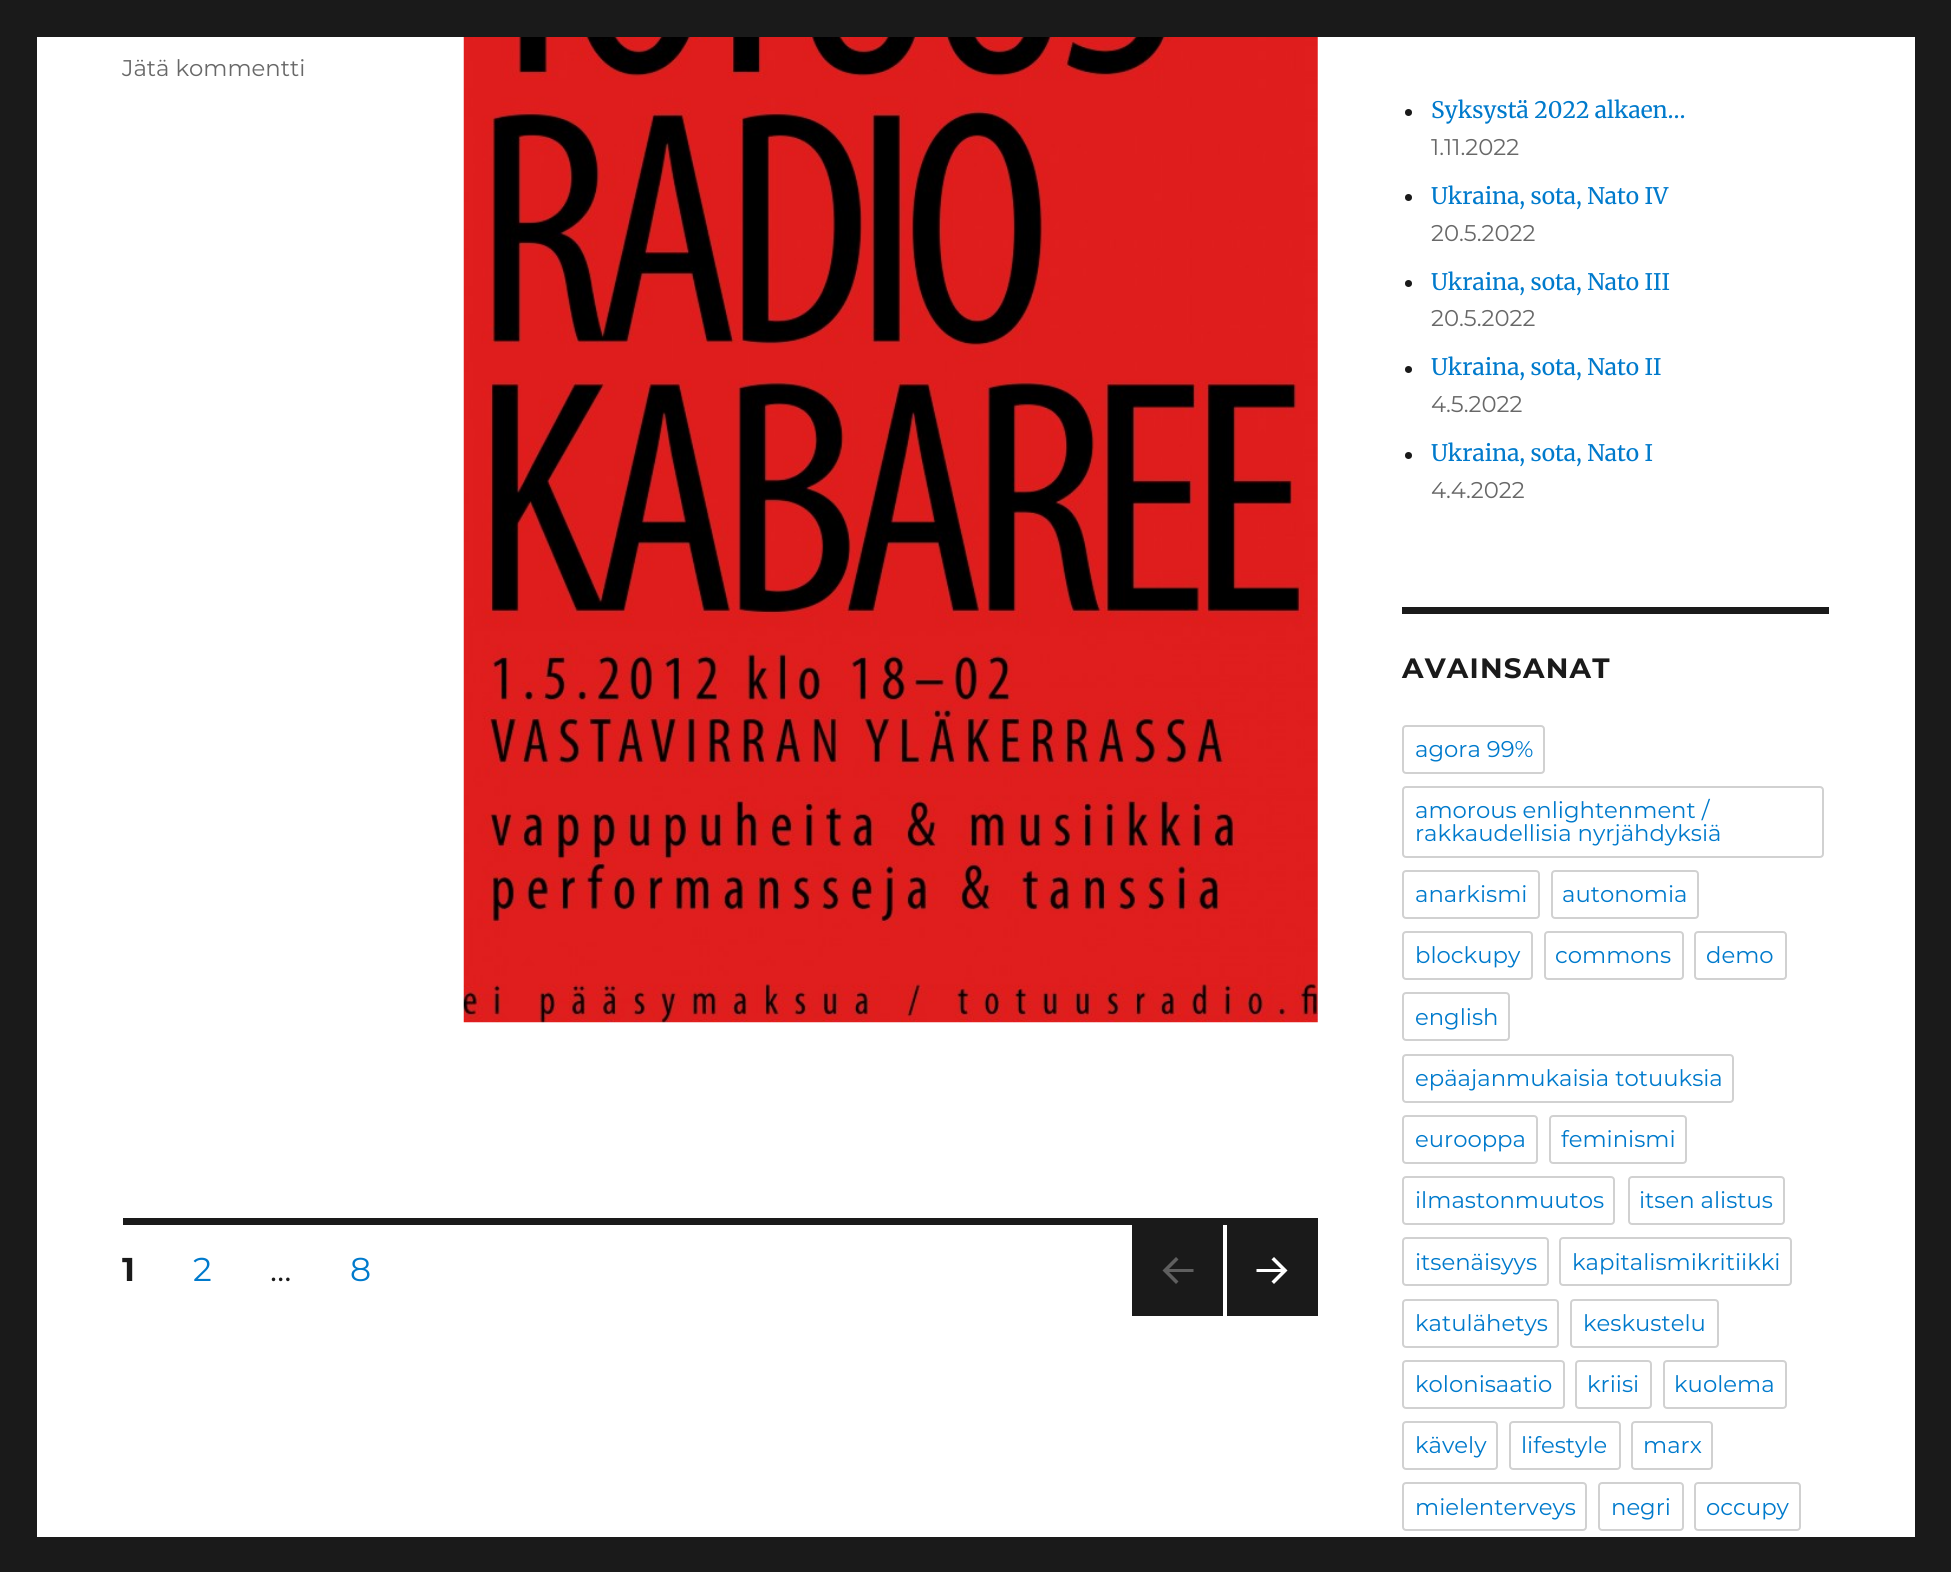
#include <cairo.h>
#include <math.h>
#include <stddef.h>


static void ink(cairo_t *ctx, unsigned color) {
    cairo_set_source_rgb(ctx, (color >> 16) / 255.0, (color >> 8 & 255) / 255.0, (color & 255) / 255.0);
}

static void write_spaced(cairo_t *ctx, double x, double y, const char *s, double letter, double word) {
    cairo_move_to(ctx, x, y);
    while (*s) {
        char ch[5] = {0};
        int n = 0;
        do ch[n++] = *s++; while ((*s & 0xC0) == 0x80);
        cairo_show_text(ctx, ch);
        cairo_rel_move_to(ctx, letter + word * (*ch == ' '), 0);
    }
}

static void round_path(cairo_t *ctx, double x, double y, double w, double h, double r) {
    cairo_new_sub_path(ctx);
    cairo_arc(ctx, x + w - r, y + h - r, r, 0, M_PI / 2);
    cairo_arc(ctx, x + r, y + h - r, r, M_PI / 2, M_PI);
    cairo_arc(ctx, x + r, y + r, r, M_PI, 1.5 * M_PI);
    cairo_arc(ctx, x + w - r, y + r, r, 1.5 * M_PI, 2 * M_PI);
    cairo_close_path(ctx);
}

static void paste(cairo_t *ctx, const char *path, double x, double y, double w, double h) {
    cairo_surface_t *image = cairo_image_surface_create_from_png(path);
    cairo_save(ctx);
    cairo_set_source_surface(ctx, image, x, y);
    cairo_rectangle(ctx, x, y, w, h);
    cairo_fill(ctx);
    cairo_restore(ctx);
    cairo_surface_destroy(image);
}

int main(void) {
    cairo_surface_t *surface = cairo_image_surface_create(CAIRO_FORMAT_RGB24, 1951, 1572);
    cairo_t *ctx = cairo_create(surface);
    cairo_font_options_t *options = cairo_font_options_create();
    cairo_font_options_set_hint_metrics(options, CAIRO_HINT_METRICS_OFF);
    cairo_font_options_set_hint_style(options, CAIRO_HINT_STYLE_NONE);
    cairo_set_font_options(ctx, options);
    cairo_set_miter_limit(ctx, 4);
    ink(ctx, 0x1A1A1A);
    cairo_paint(ctx);
    ink(ctx, 0xFFFFFF);
    cairo_rectangle(ctx, 37, 37, 1878, 1500);
    cairo_fill(ctx);
    cairo_select_font_face(ctx, "Montserrat", CAIRO_FONT_SLANT_NORMAL, CAIRO_FONT_WEIGHT_NORMAL);
    cairo_set_font_size(ctx, 22.75);
    ink(ctx, 0x686868);
    cairo_move_to(ctx, 122, 76);
    cairo_show_text(ctx, "Jätä kommentti");
    paste(ctx, "media/1.png", 463, 37, 855, 986);
    ink(ctx, 0x1A1A1A);
    cairo_rectangle(ctx, 123, 1218, 1195, 7);
    cairo_fill(ctx);
    cairo_select_font_face(ctx, "Montserrat", CAIRO_FONT_SLANT_NORMAL, CAIRO_FONT_WEIGHT_BOLD);
    cairo_set_font_size(ctx, 33);
    cairo_move_to(ctx, 122, 1281);
    cairo_show_text(ctx, "1");
    cairo_select_font_face(ctx, "Montserrat", CAIRO_FONT_SLANT_NORMAL, CAIRO_FONT_WEIGHT_NORMAL);
    ink(ctx, 0x007ACC);
    cairo_move_to(ctx, 193, 1281);
    cairo_show_text(ctx, "2");
    ink(ctx, 0x1A1A1A);
    cairo_move_to(ctx, 270, 1281);
    cairo_show_text(ctx, "…");
    ink(ctx, 0x007ACC);
    cairo_move_to(ctx, 350, 1281);
    cairo_show_text(ctx, "8");
    ink(ctx, 0x1A1A1A);
    cairo_rectangle(ctx, 1132, 1225, 91, 91);
    cairo_fill(ctx);
    ink(ctx, 0x5F5F5F);
    cairo_new_path(ctx);
    cairo_move_to(ctx, 1176, 1257);
    cairo_line_to(ctx, 1178.5, 1259.5);
    cairo_line_to(ctx, 1169, 1269);
    cairo_line_to(ctx, 1193.5, 1269);
    cairo_line_to(ctx, 1193.5, 1272);
    cairo_line_to(ctx, 1169, 1272);
    cairo_line_to(ctx, 1178.5, 1281.5);
    cairo_line_to(ctx, 1176, 1284);
    cairo_line_to(ctx, 1162.5, 1270.5);
    cairo_close_path(ctx);
    cairo_fill(ctx);
    ink(ctx, 0x1A1A1A);
    cairo_rectangle(ctx, 1227, 1225, 91, 91);
    cairo_fill(ctx);
    ink(ctx, 0xFFFFFF);
    cairo_new_path(ctx);
    cairo_move_to(ctx, 1274, 1257);
    cairo_line_to(ctx, 1287.5, 1270.5);
    cairo_line_to(ctx, 1274, 1284);
    cairo_line_to(ctx, 1271.5, 1281.5);
    cairo_line_to(ctx, 1281, 1272);
    cairo_line_to(ctx, 1256.5, 1272);
    cairo_line_to(ctx, 1256.5, 1269);
    cairo_line_to(ctx, 1281, 1269);
    cairo_line_to(ctx, 1271.5, 1259.5);
    cairo_close_path(ctx);
    cairo_fill(ctx);
    ink(ctx, 0x1A1A1A);
    cairo_arc(ctx, 1408.5, 112.5, 3.5, 0, 2 * M_PI);
    cairo_fill(ctx);
    cairo_select_font_face(ctx, "Merriweather", CAIRO_FONT_SLANT_NORMAL, CAIRO_FONT_WEIGHT_NORMAL);
    cairo_set_font_size(ctx, 22.75);
    ink(ctx, 0x007ACC);
    cairo_move_to(ctx, 1431, 118);
    cairo_show_text(ctx, "Syksystä 2022 alkaen…");
    cairo_select_font_face(ctx, "Montserrat", CAIRO_FONT_SLANT_NORMAL, CAIRO_FONT_WEIGHT_NORMAL);
    ink(ctx, 0x686868);
    cairo_move_to(ctx, 1431, 155);
    cairo_show_text(ctx, "1.11.2022");
    ink(ctx, 0x1A1A1A);
    cairo_new_path(ctx);
    cairo_arc(ctx, 1408.5, 197.5, 3.5, 0, 2 * M_PI);
    cairo_fill(ctx);
    cairo_select_font_face(ctx, "Merriweather", CAIRO_FONT_SLANT_NORMAL, CAIRO_FONT_WEIGHT_NORMAL);
    ink(ctx, 0x007ACC);
    cairo_move_to(ctx, 1431, 204);
    cairo_show_text(ctx, "Ukraina, sota, Nato IV");
    cairo_select_font_face(ctx, "Montserrat", CAIRO_FONT_SLANT_NORMAL, CAIRO_FONT_WEIGHT_NORMAL);
    ink(ctx, 0x686868);
    cairo_move_to(ctx, 1431, 241);
    cairo_show_text(ctx, "20.5.2022");
    ink(ctx, 0x1A1A1A);
    cairo_new_path(ctx);
    cairo_arc(ctx, 1408.5, 283.5, 3.5, 0, 2 * M_PI);
    cairo_fill(ctx);
    cairo_select_font_face(ctx, "Merriweather", CAIRO_FONT_SLANT_NORMAL, CAIRO_FONT_WEIGHT_NORMAL);
    ink(ctx, 0x007ACC);
    cairo_move_to(ctx, 1431, 290);
    cairo_show_text(ctx, "Ukraina, sota, Nato III");
    cairo_select_font_face(ctx, "Montserrat", CAIRO_FONT_SLANT_NORMAL, CAIRO_FONT_WEIGHT_NORMAL);
    ink(ctx, 0x686868);
    cairo_move_to(ctx, 1431, 326);
    cairo_show_text(ctx, "20.5.2022");
    ink(ctx, 0x1A1A1A);
    cairo_new_path(ctx);
    cairo_arc(ctx, 1408.5, 369.5, 3.5, 0, 2 * M_PI);
    cairo_fill(ctx);
    cairo_select_font_face(ctx, "Merriweather", CAIRO_FONT_SLANT_NORMAL, CAIRO_FONT_WEIGHT_NORMAL);
    ink(ctx, 0x007ACC);
    cairo_move_to(ctx, 1431, 375);
    cairo_show_text(ctx, "Ukraina, sota, Nato II");
    cairo_select_font_face(ctx, "Montserrat", CAIRO_FONT_SLANT_NORMAL, CAIRO_FONT_WEIGHT_NORMAL);
    ink(ctx, 0x686868);
    cairo_move_to(ctx, 1431, 412);
    cairo_show_text(ctx, "4.5.2022");
    ink(ctx, 0x1A1A1A);
    cairo_new_path(ctx);
    cairo_arc(ctx, 1408.5, 455.5, 3.5, 0, 2 * M_PI);
    cairo_fill(ctx);
    cairo_select_font_face(ctx, "Merriweather", CAIRO_FONT_SLANT_NORMAL, CAIRO_FONT_WEIGHT_NORMAL);
    ink(ctx, 0x007ACC);
    cairo_move_to(ctx, 1431, 461);
    cairo_show_text(ctx, "Ukraina, sota, Nato I");
    cairo_select_font_face(ctx, "Montserrat", CAIRO_FONT_SLANT_NORMAL, CAIRO_FONT_WEIGHT_NORMAL);
    ink(ctx, 0x686868);
    cairo_move_to(ctx, 1431, 498);
    cairo_show_text(ctx, "4.4.2022");
    ink(ctx, 0x1A1A1A);
    cairo_rectangle(ctx, 1402, 607, 427, 7);
    cairo_fill(ctx);
    cairo_select_font_face(ctx, "Montserrat", CAIRO_FONT_SLANT_NORMAL, CAIRO_FONT_WEIGHT_BOLD);
    cairo_set_font_size(ctx, 28);
    write_spaced(ctx, 1402, 678, "AVAINSANAT", 1.25, 0);
    round_path(ctx, 1403, 726, 141, 47, 3);
    ink(ctx, 0xD1D1D1);
    cairo_stroke(ctx);
    cairo_select_font_face(ctx, "Montserrat", CAIRO_FONT_SLANT_NORMAL, CAIRO_FONT_WEIGHT_NORMAL);
    cairo_set_font_size(ctx, 22.75);
    ink(ctx, 0x007ACC);
    cairo_move_to(ctx, 1415, 757);
    cairo_show_text(ctx, "agora 99%");
    round_path(ctx, 1403, 787, 420, 70, 3);
    ink(ctx, 0xD1D1D1);
    cairo_stroke(ctx);
    ink(ctx, 0x007ACC);
    cairo_move_to(ctx, 1415, 818);
    cairo_show_text(ctx, "amorous enlightenment /");
    cairo_move_to(ctx, 1415, 841);
    cairo_show_text(ctx, "rakkaudellisia nyrjähdyksiä");
    round_path(ctx, 1403, 871, 136, 47, 3);
    ink(ctx, 0xD1D1D1);
    cairo_stroke(ctx);
    ink(ctx, 0x007ACC);
    cairo_move_to(ctx, 1415, 902);
    cairo_show_text(ctx, "anarkismi");
    round_path(ctx, 1552, 871, 146, 47, 3);
    ink(ctx, 0xD1D1D1);
    cairo_stroke(ctx);
    ink(ctx, 0x007ACC);
    cairo_move_to(ctx, 1562, 902);
    cairo_show_text(ctx, "autonomia");
    round_path(ctx, 1403, 932, 129, 47, 3);
    ink(ctx, 0xD1D1D1);
    cairo_stroke(ctx);
    ink(ctx, 0x007ACC);
    cairo_move_to(ctx, 1415, 963);
    cairo_show_text(ctx, "blockupy");
    round_path(ctx, 1545, 932, 138, 47, 3);
    ink(ctx, 0xD1D1D1);
    cairo_stroke(ctx);
    ink(ctx, 0x007ACC);
    cairo_move_to(ctx, 1555, 963);
    cairo_show_text(ctx, "commons");
    round_path(ctx, 1695, 932, 91, 47, 3);
    ink(ctx, 0xD1D1D1);
    cairo_stroke(ctx);
    ink(ctx, 0x007ACC);
    cairo_move_to(ctx, 1706, 963);
    cairo_show_text(ctx, "demo");
    round_path(ctx, 1403, 993, 106, 47, 3);
    ink(ctx, 0xD1D1D1);
    cairo_stroke(ctx);
    ink(ctx, 0x007ACC);
    cairo_move_to(ctx, 1415, 1025);
    cairo_show_text(ctx, "english");
    round_path(ctx, 1403, 1055, 330, 47, 3);
    ink(ctx, 0xD1D1D1);
    cairo_stroke(ctx);
    ink(ctx, 0x007ACC);
    cairo_move_to(ctx, 1415, 1086);
    cairo_show_text(ctx, "epäajanmukaisia totuuksia");
    round_path(ctx, 1403, 1116, 134, 47, 3);
    ink(ctx, 0xD1D1D1);
    cairo_stroke(ctx);
    ink(ctx, 0x007ACC);
    cairo_move_to(ctx, 1415, 1147);
    cairo_show_text(ctx, "eurooppa");
    round_path(ctx, 1550, 1116, 136, 47, 3);
    ink(ctx, 0xD1D1D1);
    cairo_stroke(ctx);
    ink(ctx, 0x007ACC);
    cairo_move_to(ctx, 1561, 1147);
    cairo_show_text(ctx, "feminismi");
    round_path(ctx, 1403, 1177, 211, 47, 3);
    ink(ctx, 0xD1D1D1);
    cairo_stroke(ctx);
    ink(ctx, 0x007ACC);
    cairo_move_to(ctx, 1415, 1208);
    cairo_show_text(ctx, "ilmastonmuutos");
    round_path(ctx, 1629, 1177, 155, 47, 3);
    ink(ctx, 0xD1D1D1);
    cairo_stroke(ctx);
    ink(ctx, 0x007ACC);
    cairo_move_to(ctx, 1639, 1208);
    cairo_show_text(ctx, "itsen alistus");
    round_path(ctx, 1403, 1238, 145, 47, 3);
    ink(ctx, 0xD1D1D1);
    cairo_stroke(ctx);
    ink(ctx, 0x007ACC);
    cairo_move_to(ctx, 1415, 1270);
    cairo_show_text(ctx, "itsenäisyys");
    round_path(ctx, 1560, 1238, 231, 47, 3);
    ink(ctx, 0xD1D1D1);
    cairo_stroke(ctx);
    ink(ctx, 0x007ACC);
    cairo_move_to(ctx, 1572, 1270);
    cairo_show_text(ctx, "kapitalismikritiikki");
    round_path(ctx, 1403, 1300, 155, 47, 3);
    ink(ctx, 0xD1D1D1);
    cairo_stroke(ctx);
    ink(ctx, 0x007ACC);
    cairo_move_to(ctx, 1415, 1331);
    cairo_show_text(ctx, "katulähetys");
    round_path(ctx, 1571, 1300, 147, 47, 3);
    ink(ctx, 0xD1D1D1);
    cairo_stroke(ctx);
    ink(ctx, 0x007ACC);
    cairo_move_to(ctx, 1583, 1331);
    cairo_show_text(ctx, "keskustelu");
    round_path(ctx, 1403, 1361, 161, 47, 3);
    ink(ctx, 0xD1D1D1);
    cairo_stroke(ctx);
    ink(ctx, 0x007ACC);
    cairo_move_to(ctx, 1415, 1392);
    cairo_show_text(ctx, "kolonisaatio");
    round_path(ctx, 1576, 1361, 75, 47, 3);
    ink(ctx, 0xD1D1D1);
    cairo_stroke(ctx);
    ink(ctx, 0x007ACC);
    cairo_move_to(ctx, 1587, 1392);
    cairo_show_text(ctx, "kriisi");
    round_path(ctx, 1664, 1361, 122, 47, 3);
    ink(ctx, 0xD1D1D1);
    cairo_stroke(ctx);
    ink(ctx, 0x007ACC);
    cairo_move_to(ctx, 1674, 1392);
    cairo_show_text(ctx, "kuolema");
    round_path(ctx, 1403, 1422, 94, 47, 3);
    ink(ctx, 0xD1D1D1);
    cairo_stroke(ctx);
    ink(ctx, 0x007ACC);
    cairo_move_to(ctx, 1415, 1453);
    cairo_show_text(ctx, "kävely");
    round_path(ctx, 1510, 1422, 110, 47, 3);
    ink(ctx, 0xD1D1D1);
    cairo_stroke(ctx);
    ink(ctx, 0x007ACC);
    cairo_move_to(ctx, 1521, 1453);
    cairo_show_text(ctx, "lifestyle");
    round_path(ctx, 1632, 1422, 80, 47, 3);
    ink(ctx, 0xD1D1D1);
    cairo_stroke(ctx);
    ink(ctx, 0x007ACC);
    cairo_move_to(ctx, 1643, 1453);
    cairo_show_text(ctx, "marx");
    round_path(ctx, 1403, 1483, 183, 47, 3);
    ink(ctx, 0xD1D1D1);
    cairo_stroke(ctx);
    ink(ctx, 0x007ACC);
    cairo_move_to(ctx, 1415, 1515);
    cairo_show_text(ctx, "mielenterveys");
    round_path(ctx, 1599, 1483, 84, 47, 3);
    ink(ctx, 0xD1D1D1);
    cairo_stroke(ctx);
    ink(ctx, 0x007ACC);
    cairo_move_to(ctx, 1611, 1515);
    cairo_show_text(ctx, "negri");
    round_path(ctx, 1695, 1483, 105, 47, 3);
    ink(ctx, 0xD1D1D1);
    cairo_stroke(ctx);
    ink(ctx, 0x007ACC);
    cairo_move_to(ctx, 1706, 1515);
    cairo_show_text(ctx, "occupy");
    cairo_surface_write_to_png(surface, "image.png");
    cairo_font_options_destroy(options);
    cairo_destroy(ctx);
    cairo_surface_destroy(surface);
    return 0;
}
